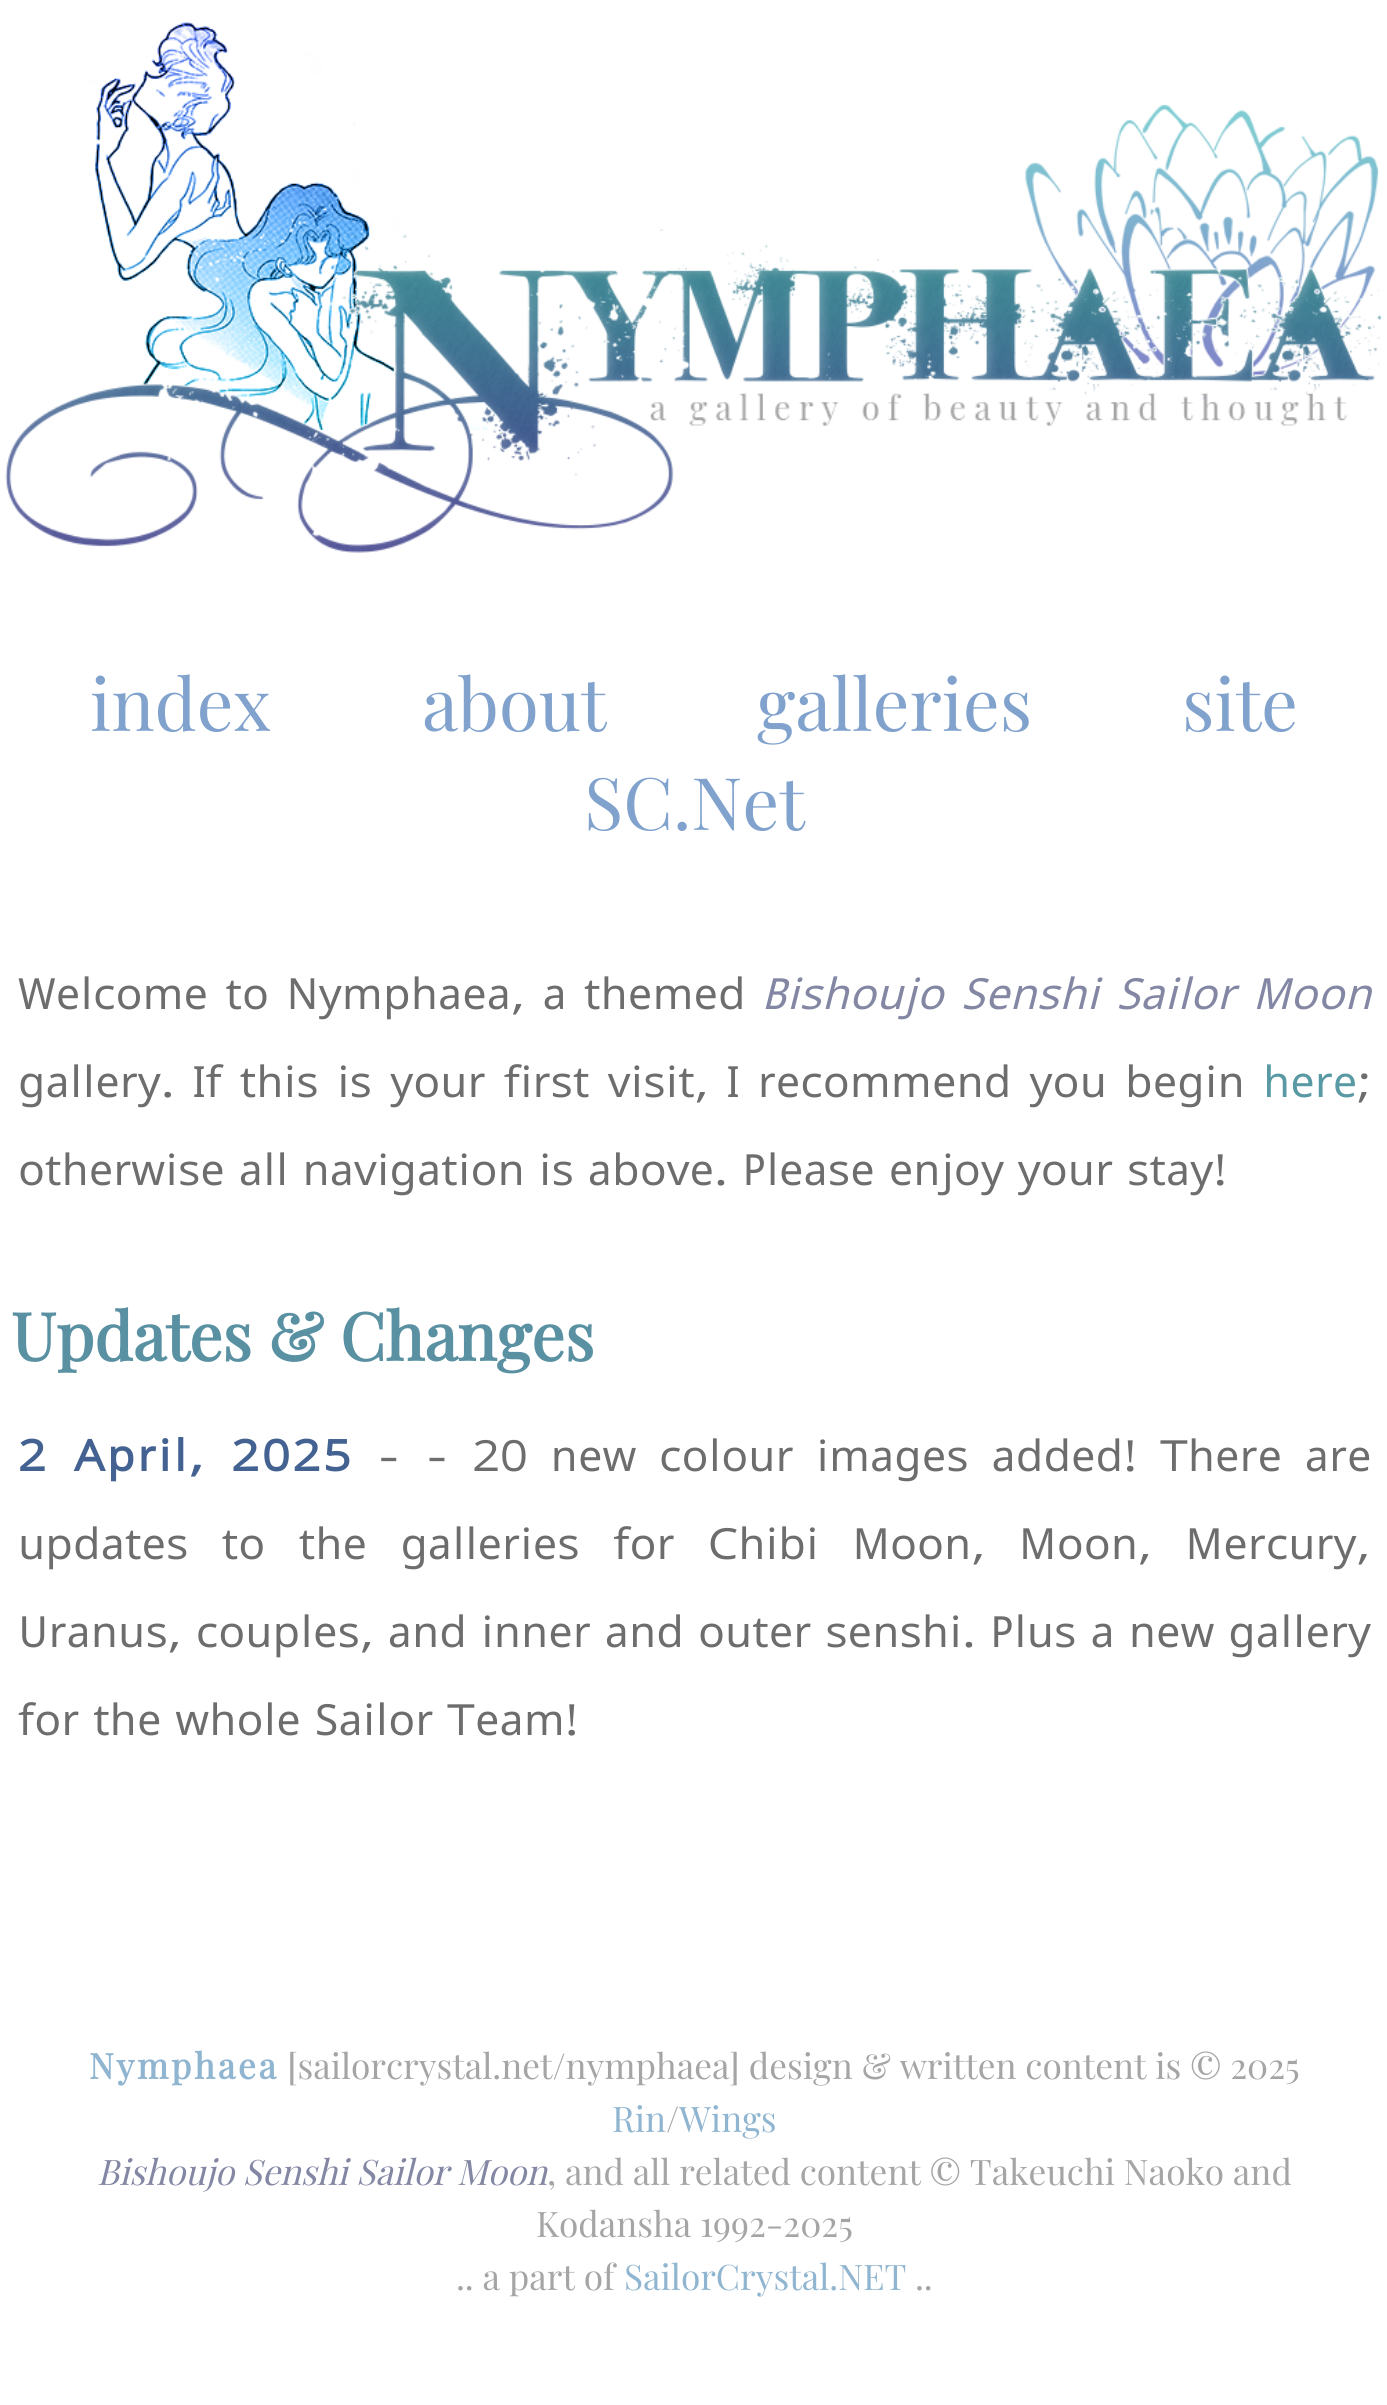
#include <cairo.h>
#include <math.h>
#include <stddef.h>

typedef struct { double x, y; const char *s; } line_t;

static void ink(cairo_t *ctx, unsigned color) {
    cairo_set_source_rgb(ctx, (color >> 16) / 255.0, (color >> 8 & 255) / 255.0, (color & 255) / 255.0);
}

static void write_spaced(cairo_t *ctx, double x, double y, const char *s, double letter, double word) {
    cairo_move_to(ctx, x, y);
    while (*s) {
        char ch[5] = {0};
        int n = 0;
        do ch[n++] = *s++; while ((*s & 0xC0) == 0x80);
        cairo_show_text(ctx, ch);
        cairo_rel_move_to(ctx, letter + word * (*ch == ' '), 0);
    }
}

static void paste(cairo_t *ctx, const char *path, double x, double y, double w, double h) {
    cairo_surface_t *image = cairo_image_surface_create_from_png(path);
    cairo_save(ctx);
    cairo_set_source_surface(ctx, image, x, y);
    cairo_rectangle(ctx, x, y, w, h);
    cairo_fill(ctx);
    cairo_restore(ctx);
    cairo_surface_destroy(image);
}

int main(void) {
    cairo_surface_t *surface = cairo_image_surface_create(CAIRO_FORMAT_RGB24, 1387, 2405);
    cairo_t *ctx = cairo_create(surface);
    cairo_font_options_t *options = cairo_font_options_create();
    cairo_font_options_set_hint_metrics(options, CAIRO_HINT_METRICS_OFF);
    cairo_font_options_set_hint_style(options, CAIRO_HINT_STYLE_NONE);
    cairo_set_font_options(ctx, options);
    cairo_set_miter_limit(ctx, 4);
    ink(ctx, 0xFFFFFF);
    cairo_paint(ctx);
    paste(ctx, "media/1.png", 5, 22, 1377, 531);
    cairo_select_font_face(ctx, "Playfair Display", CAIRO_FONT_SLANT_NORMAL, CAIRO_FONT_WEIGHT_NORMAL);
    cairo_set_font_size(ctx, 72.5);
    ink(ctx, 0x80A2CD);
    {
        static const line_t items[] = {
            {90, 731, "index"},
            {422, 731, "about"},
            {757, 731, "galleries"},
            {1182, 731, "site"},
            {584, 830, "SC.Net"},
        };
        for (size_t i = 0; i < sizeof items / sizeof *items; i++) {
            cairo_move_to(ctx, items[i].x, items[i].y);
            cairo_show_text(ctx, items[i].s);
        }
    }
    cairo_select_font_face(ctx, "Lunasima", CAIRO_FONT_SLANT_NORMAL, CAIRO_FONT_WEIGHT_NORMAL);
    cairo_set_font_size(ctx, 44);
    ink(ctx, 0x6D6D6D);
    write_spaced(ctx, 18, 1009, "Welcome to Nymphaea, a themed", 0, 3.5);
    cairo_select_font_face(ctx, "Lunasima", CAIRO_FONT_SLANT_ITALIC, CAIRO_FONT_WEIGHT_NORMAL);
    ink(ctx, 0x8387A3);
    write_spaced(ctx, 761, 1009, "Bishoujo Senshi Sailor Moon", 0, 3.5);
    cairo_select_font_face(ctx, "Lunasima", CAIRO_FONT_SLANT_NORMAL, CAIRO_FONT_WEIGHT_NORMAL);
    ink(ctx, 0x6D6D6D);
    write_spaced(ctx, 18, 1097, "gallery. If this is your first visit, I recommend you begin", 0, 4.25);
    ink(ctx, 0x5899A4);
    cairo_move_to(ctx, 1263, 1097);
    cairo_show_text(ctx, "here");
    ink(ctx, 0x6D6D6D);
    cairo_move_to(ctx, 1357, 1097);
    cairo_show_text(ctx, ";");
    cairo_move_to(ctx, 18, 1185);
    cairo_show_text(ctx, "otherwise all navigation is above. Please enjoy your stay!");
    cairo_select_font_face(ctx, "Playfair Display", CAIRO_FONT_SLANT_NORMAL, CAIRO_FONT_WEIGHT_BOLD);
    cairo_set_font_size(ctx, 66);
    ink(ctx, 0x5990A2);
    cairo_move_to(ctx, 11, 1361);
    cairo_show_text(ctx, "Updates & Changes");
    cairo_select_font_face(ctx, "Lunasima", CAIRO_FONT_SLANT_NORMAL, CAIRO_FONT_WEIGHT_BOLD);
    cairo_set_font_size(ctx, 44);
    ink(ctx, 0x436292);
    write_spaced(ctx, 18, 1471, "2 April, 2025", 2.75, 8.75);
    cairo_select_font_face(ctx, "Lunasima", CAIRO_FONT_SLANT_NORMAL, CAIRO_FONT_WEIGHT_NORMAL);
    ink(ctx, 0x6D6D6D);
    write_spaced(ctx, 376, 1471, "- - 20 new colour images added! There are", 0, 8.75);
    write_spaced(ctx, 18, 1559, "updates to the galleries for Chibi Moon, Moon, Mercury,", 0, 19.5);
    cairo_move_to(ctx, 18, 1647);
    cairo_show_text(ctx, "Uranus, couples, and inner and outer senshi. Plus a new gallery");
    cairo_move_to(ctx, 18, 1735);
    cairo_show_text(ctx, "for the whole Sailor Team!");
    cairo_select_font_face(ctx, "Playfair Display", CAIRO_FONT_SLANT_NORMAL, CAIRO_FONT_WEIGHT_BOLD);
    cairo_set_font_size(ctx, 35.2);
    ink(ctx, 0x90B5D0);
    write_spaced(ctx, 89, 2079, "Nymphaea", 2.75, 0);
    cairo_select_font_face(ctx, "Playfair Display", CAIRO_FONT_SLANT_NORMAL, CAIRO_FONT_WEIGHT_NORMAL);
    ink(ctx, 0xA5A5A5);
    cairo_move_to(ctx, 287, 2079);
    cairo_show_text(ctx, "[sailorcrystal.net/nymphaea] design & written content is © 2025");
    ink(ctx, 0x90B5D0);
    cairo_move_to(ctx, 612, 2132);
    cairo_show_text(ctx, "Rin");
    ink(ctx, 0xA5A5A5);
    cairo_move_to(ctx, 666, 2132);
    cairo_show_text(ctx, "/");
    ink(ctx, 0x90B5D0);
    cairo_move_to(ctx, 679, 2132);
    cairo_show_text(ctx, "Wings");
    cairo_select_font_face(ctx, "Playfair Display", CAIRO_FONT_SLANT_ITALIC, CAIRO_FONT_WEIGHT_NORMAL);
    ink(ctx, 0x8387A3);
    cairo_move_to(ctx, 97, 2185);
    cairo_show_text(ctx, "Bishoujo Senshi Sailor Moon");
    cairo_select_font_face(ctx, "Playfair Display", CAIRO_FONT_SLANT_NORMAL, CAIRO_FONT_WEIGHT_NORMAL);
    ink(ctx, 0xA5A5A5);
    {
        static const line_t items[] = {
            {547, 2185, ", and all related content © Takeuchi Naoko and"},
            {536, 2237, "Kodansha 1992-2025"},
            {456, 2290, ".. a part of"},
        };
        for (size_t i = 0; i < sizeof items / sizeof *items; i++) {
            cairo_move_to(ctx, items[i].x, items[i].y);
            cairo_show_text(ctx, items[i].s);
        }
    }
    ink(ctx, 0x90B5D0);
    cairo_move_to(ctx, 624, 2290);
    cairo_show_text(ctx, "SailorCrystal.NET");
    ink(ctx, 0xA5A5A5);
    cairo_move_to(ctx, 915, 2290);
    cairo_show_text(ctx, "..");
    cairo_surface_write_to_png(surface, "image.png");
    cairo_font_options_destroy(options);
    cairo_destroy(ctx);
    cairo_surface_destroy(surface);
    return 0;
}
